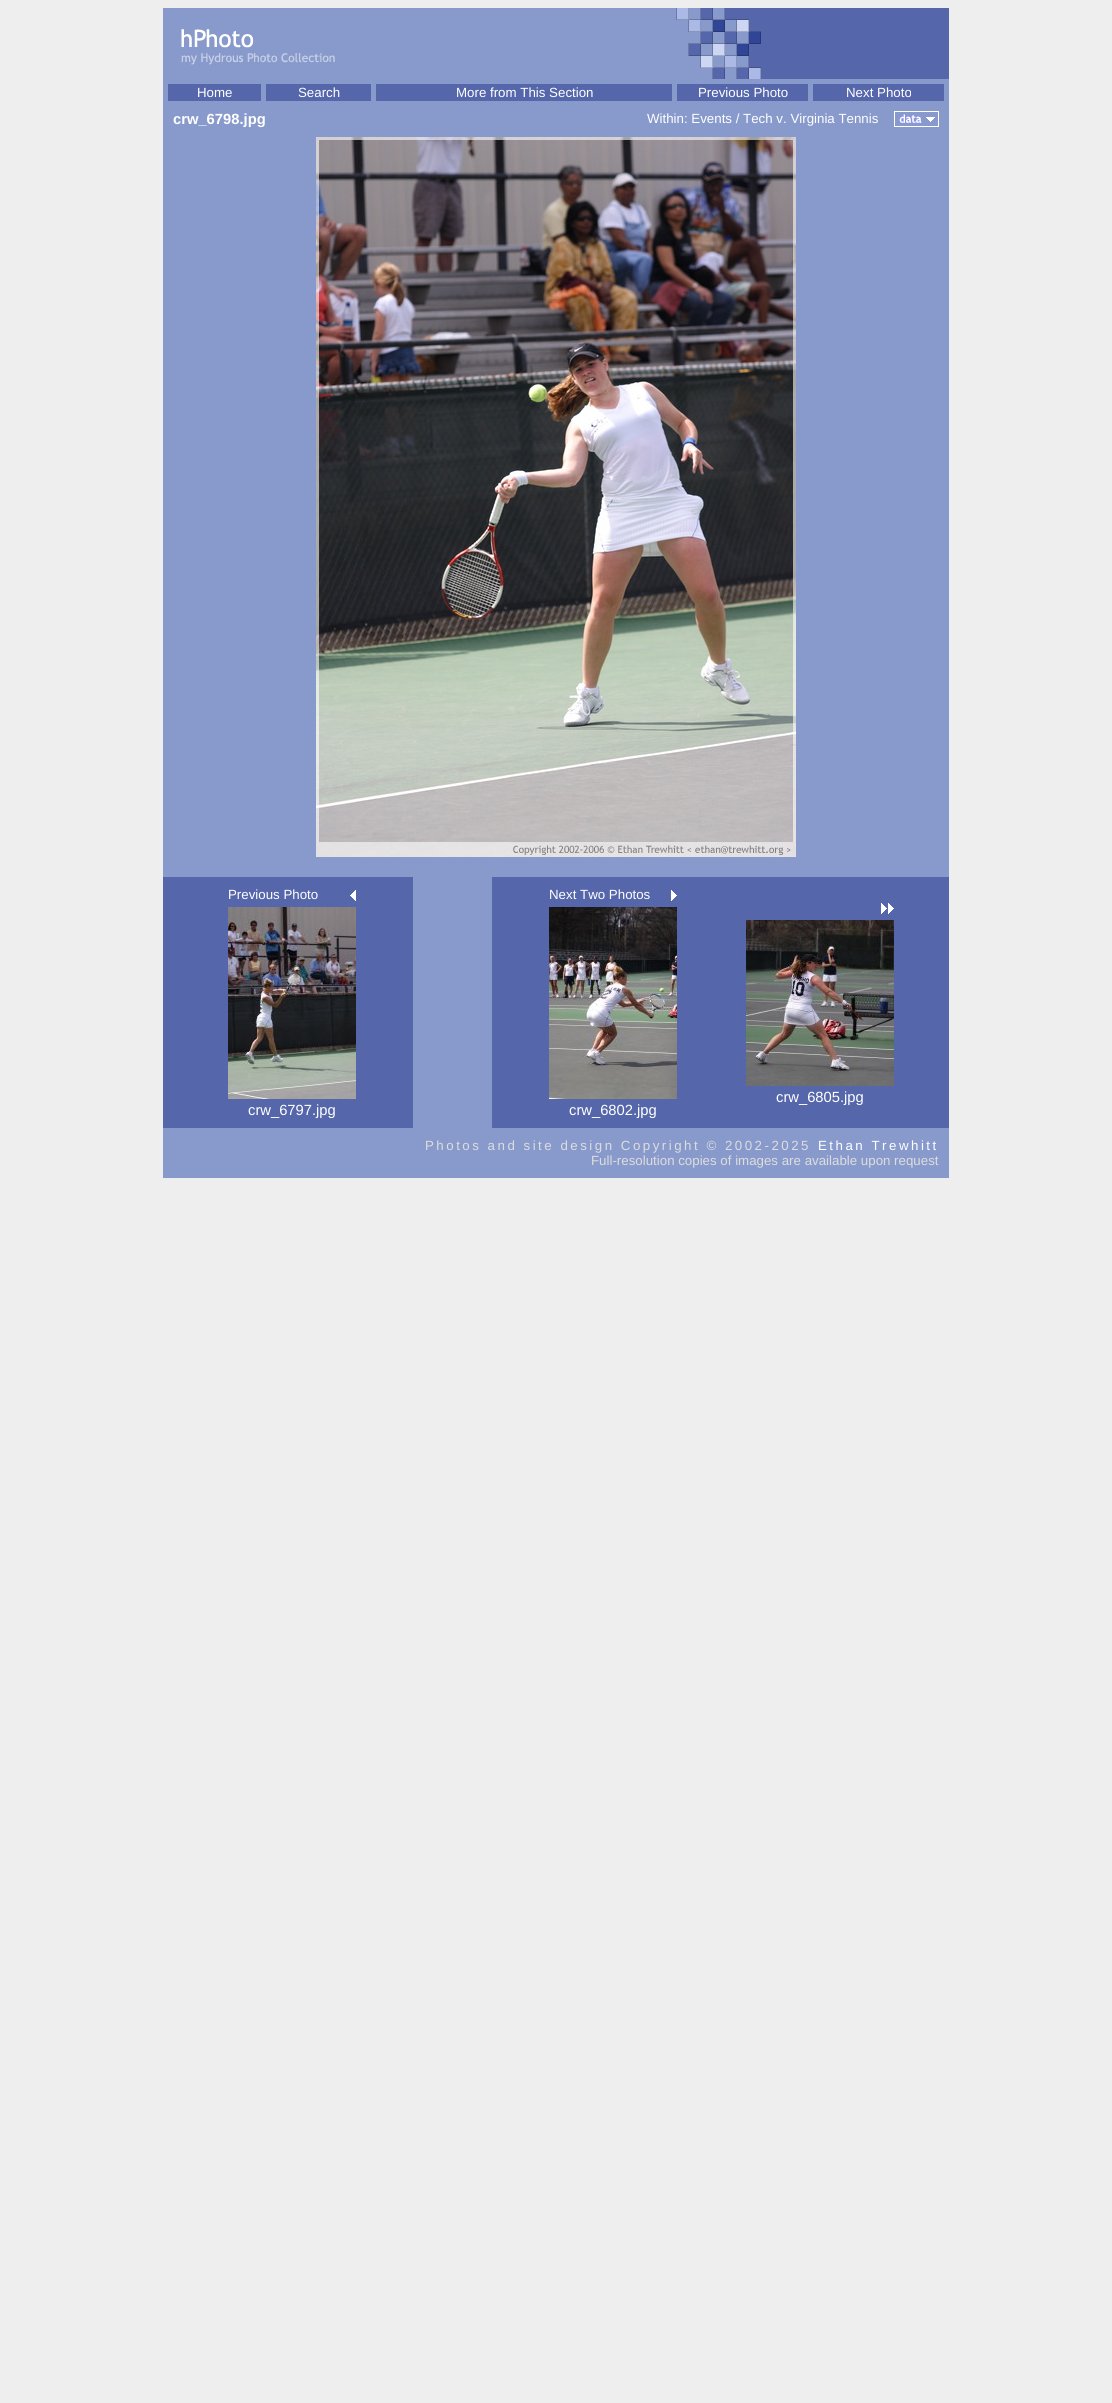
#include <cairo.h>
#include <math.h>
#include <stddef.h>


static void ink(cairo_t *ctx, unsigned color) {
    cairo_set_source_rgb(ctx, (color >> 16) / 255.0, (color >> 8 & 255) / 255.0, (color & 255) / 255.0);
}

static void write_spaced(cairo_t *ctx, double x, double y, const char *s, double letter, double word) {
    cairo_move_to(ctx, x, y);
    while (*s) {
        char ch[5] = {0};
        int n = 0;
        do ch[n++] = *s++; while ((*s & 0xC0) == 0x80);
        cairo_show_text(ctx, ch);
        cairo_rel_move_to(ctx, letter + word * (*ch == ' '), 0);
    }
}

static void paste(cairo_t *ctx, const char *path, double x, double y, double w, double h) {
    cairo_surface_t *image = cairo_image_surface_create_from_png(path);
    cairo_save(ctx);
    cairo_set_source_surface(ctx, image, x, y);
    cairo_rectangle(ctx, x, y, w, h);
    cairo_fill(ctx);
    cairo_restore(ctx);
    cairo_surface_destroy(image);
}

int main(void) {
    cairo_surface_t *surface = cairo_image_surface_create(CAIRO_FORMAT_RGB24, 1112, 2403);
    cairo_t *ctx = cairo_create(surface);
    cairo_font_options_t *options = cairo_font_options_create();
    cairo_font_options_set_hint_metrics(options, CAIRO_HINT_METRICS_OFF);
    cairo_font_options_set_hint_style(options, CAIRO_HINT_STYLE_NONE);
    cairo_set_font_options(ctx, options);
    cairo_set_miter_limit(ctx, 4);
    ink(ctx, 0xEEEEEE);
    cairo_paint(ctx);
    ink(ctx, 0x8899CC);
    cairo_rectangle(ctx, 163, 8, 786, 1170);
    cairo_fill(ctx);
    paste(ctx, "media/1.png", 181, 8, 768, 71);
    ink(ctx, 0x5566AA);
    cairo_rectangle(ctx, 168, 84, 93, 17);
    cairo_fill(ctx);
    cairo_select_font_face(ctx, "Liberation Sans", CAIRO_FONT_SLANT_NORMAL, CAIRO_FONT_WEIGHT_NORMAL);
    cairo_set_font_size(ctx, 13.3);
    ink(ctx, 0xFFFFFF);
    cairo_move_to(ctx, 197, 97);
    cairo_show_text(ctx, "Home");
    ink(ctx, 0x5566AA);
    cairo_rectangle(ctx, 266, 84, 105, 17);
    cairo_fill(ctx);
    ink(ctx, 0xFFFFFF);
    cairo_move_to(ctx, 298, 97);
    cairo_show_text(ctx, "Search");
    ink(ctx, 0x5566AA);
    cairo_rectangle(ctx, 376, 84, 296, 17);
    cairo_fill(ctx);
    ink(ctx, 0xFFFFFF);
    cairo_move_to(ctx, 456, 97);
    cairo_show_text(ctx, "More from This Section");
    ink(ctx, 0x5566AA);
    cairo_rectangle(ctx, 677, 84, 131, 17);
    cairo_fill(ctx);
    ink(ctx, 0xFFFFFF);
    cairo_move_to(ctx, 698, 97);
    cairo_show_text(ctx, "Previous Photo");
    ink(ctx, 0x5566AA);
    cairo_rectangle(ctx, 813, 84, 131, 17);
    cairo_fill(ctx);
    ink(ctx, 0xFFFFFF);
    cairo_move_to(ctx, 846, 97);
    cairo_show_text(ctx, "Next Photo");
    cairo_select_font_face(ctx, "Liberation Sans", CAIRO_FONT_SLANT_NORMAL, CAIRO_FONT_WEIGHT_BOLD);
    cairo_set_font_size(ctx, 14.75);
    cairo_move_to(ctx, 173, 124);
    cairo_show_text(ctx, "crw_6798.jpg");
    cairo_select_font_face(ctx, "Liberation Sans", CAIRO_FONT_SLANT_NORMAL, CAIRO_FONT_WEIGHT_NORMAL);
    cairo_set_font_size(ctx, 13.3);
    cairo_move_to(ctx, 647, 123);
    cairo_show_text(ctx, "Within: Events / Tech v. Virginia Tennis");
    paste(ctx, "media/2.png", 894, 111, 45, 16);
    paste(ctx, "media/3.png", 316, 137, 480, 720);
    ink(ctx, 0x5566AA);
    cairo_rectangle(ctx, 163, 877, 786, 251);
    cairo_fill(ctx);
    ink(ctx, 0xFFFFFF);
    cairo_move_to(ctx, 228, 899);
    cairo_show_text(ctx, "Previous Photo");
    paste(ctx, "media/4.png", 350, 890, 6, 11);
    paste(ctx, "media/5.png", 228, 907, 128, 192);
    cairo_set_font_size(ctx, 14.75);
    cairo_move_to(ctx, 248, 1115);
    cairo_show_text(ctx, "crw_6797.jpg");
    ink(ctx, 0x8899CC);
    cairo_rectangle(ctx, 413, 877, 79, 251);
    cairo_fill(ctx);
    cairo_set_font_size(ctx, 13.3);
    ink(ctx, 0xFFFFFF);
    cairo_move_to(ctx, 549, 899);
    cairo_show_text(ctx, "Next Two Photos");
    paste(ctx, "media/6.png", 671, 890, 6, 11);
    paste(ctx, "media/7.png", 549, 907, 128, 192);
    cairo_set_font_size(ctx, 14.75);
    cairo_move_to(ctx, 569, 1115);
    cairo_show_text(ctx, "crw_6802.jpg");
    paste(ctx, "media/8.png", 881, 903, 13, 11);
    paste(ctx, "media/9.png", 746, 920, 148, 166);
    cairo_move_to(ctx, 776, 1102);
    cairo_show_text(ctx, "crw_6805.jpg");
    cairo_set_font_size(ctx, 13.3);
    ink(ctx, 0xDDDDDD);
    write_spaced(ctx, 425, 1150, "Photos and site design Copyright © 2002-2025", 2.5, 0);
    ink(ctx, 0xFFFFFF);
    write_spaced(ctx, 818, 1150, "Ethan Trewhitt", 2.5, 0);
    ink(ctx, 0xDDDDDD);
    cairo_move_to(ctx, 591, 1165);
    cairo_show_text(ctx, "Full-resolution copies of images are available upon request");
    cairo_surface_write_to_png(surface, "image.png");
    cairo_font_options_destroy(options);
    cairo_destroy(ctx);
    cairo_surface_destroy(surface);
    return 0;
}
